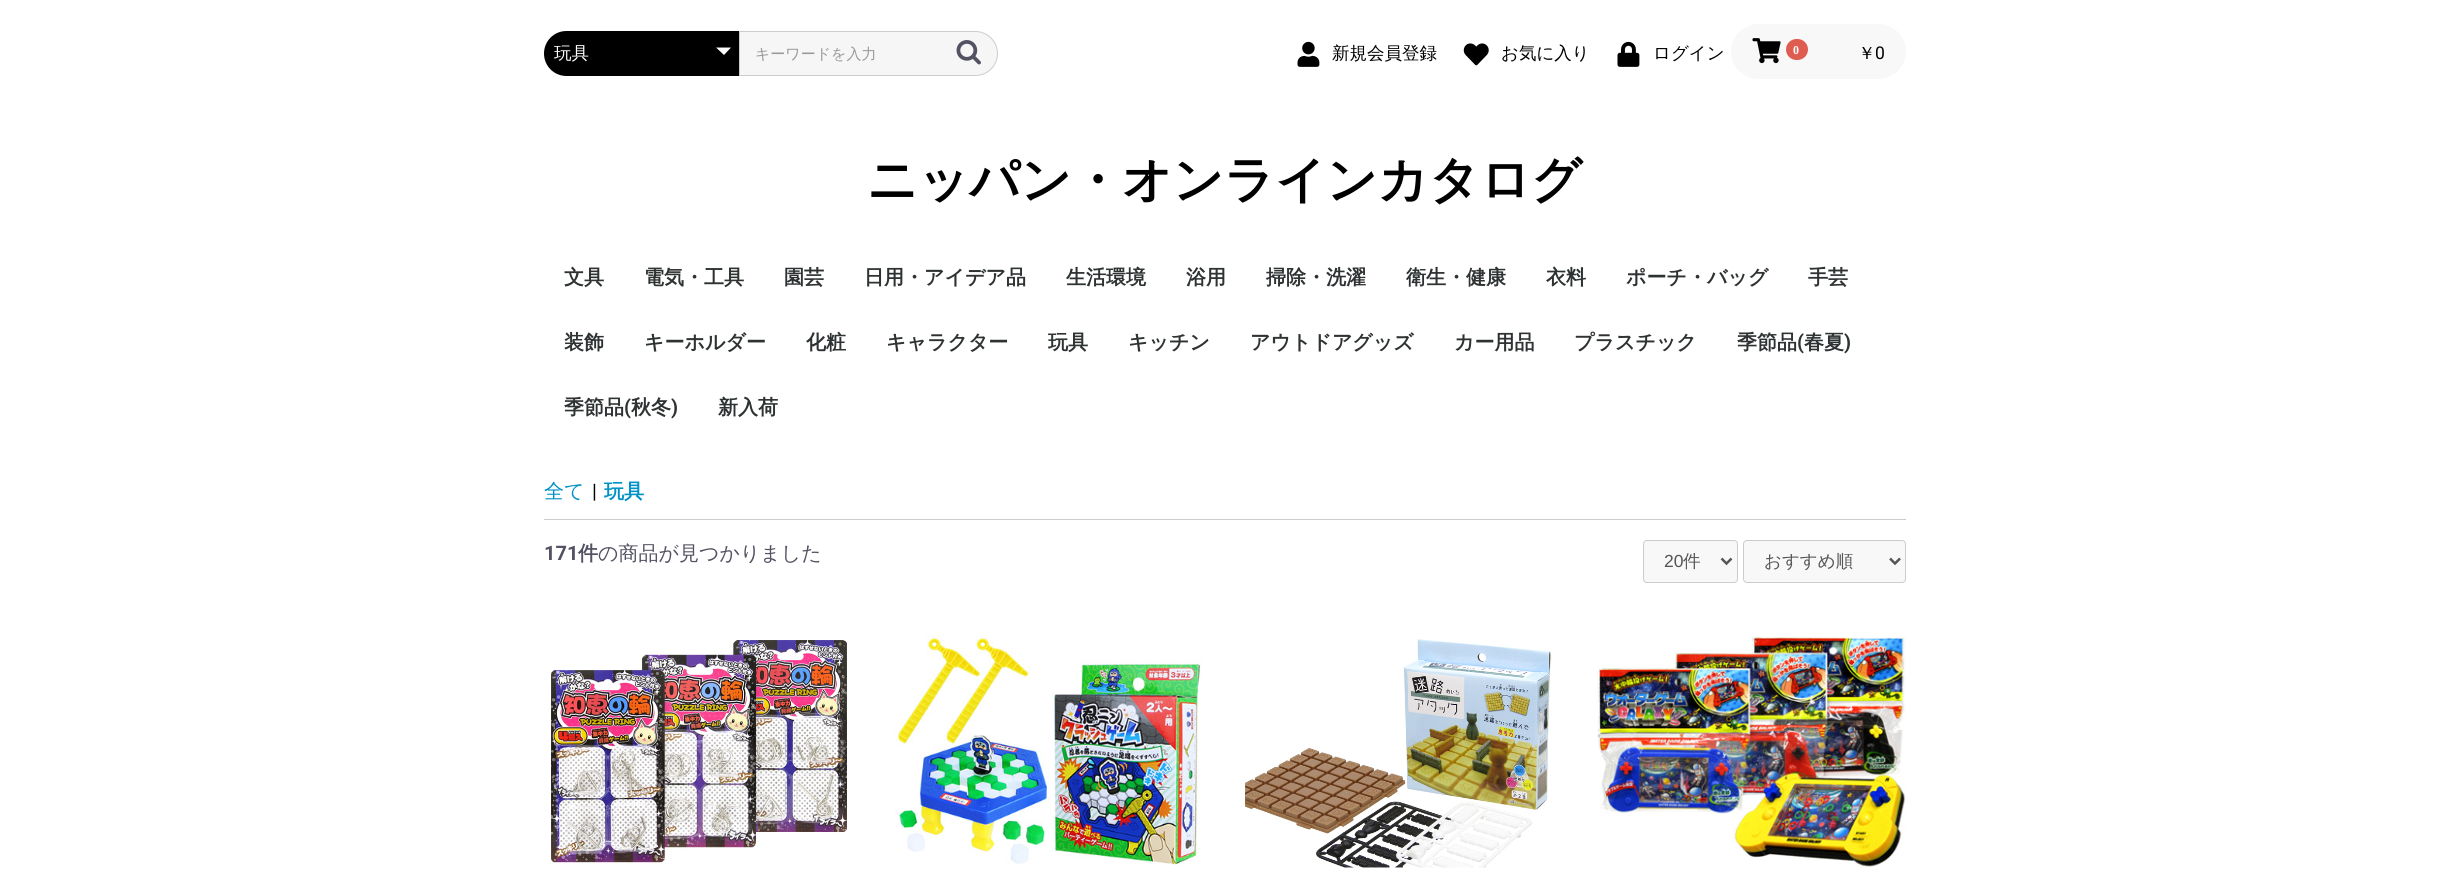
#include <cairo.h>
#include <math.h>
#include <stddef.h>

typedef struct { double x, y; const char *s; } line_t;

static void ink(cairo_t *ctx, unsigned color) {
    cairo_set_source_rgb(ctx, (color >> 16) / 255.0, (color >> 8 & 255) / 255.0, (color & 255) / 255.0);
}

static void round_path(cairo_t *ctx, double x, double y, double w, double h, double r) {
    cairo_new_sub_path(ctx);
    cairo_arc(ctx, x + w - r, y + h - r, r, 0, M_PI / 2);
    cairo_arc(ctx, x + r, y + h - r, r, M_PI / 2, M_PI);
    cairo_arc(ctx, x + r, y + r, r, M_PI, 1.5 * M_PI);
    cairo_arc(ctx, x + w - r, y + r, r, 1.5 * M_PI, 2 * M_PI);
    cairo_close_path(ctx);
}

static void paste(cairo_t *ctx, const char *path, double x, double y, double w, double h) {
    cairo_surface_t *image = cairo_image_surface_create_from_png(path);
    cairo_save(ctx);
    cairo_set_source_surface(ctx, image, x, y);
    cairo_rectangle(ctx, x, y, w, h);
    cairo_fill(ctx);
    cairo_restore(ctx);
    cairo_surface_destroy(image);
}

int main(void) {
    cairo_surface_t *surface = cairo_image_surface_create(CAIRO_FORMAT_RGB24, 2450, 889);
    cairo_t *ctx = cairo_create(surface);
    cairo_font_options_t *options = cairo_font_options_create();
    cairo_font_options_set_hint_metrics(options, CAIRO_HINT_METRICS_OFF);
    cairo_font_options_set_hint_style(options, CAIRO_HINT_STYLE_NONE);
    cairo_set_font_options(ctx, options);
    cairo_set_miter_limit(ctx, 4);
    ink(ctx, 0xFFFFFF);
    cairo_paint(ctx);
    ink(ctx, 0x000000);
    cairo_new_path(ctx);
    cairo_move_to(ctx, 566.5, 31);
    cairo_line_to(ctx, 739, 31);
    cairo_line_to(ctx, 739, 76);
    cairo_line_to(ctx, 566.5, 76);
    cairo_curve_to(ctx, 554, 76, 544, 66, 544, 53.5);
    cairo_curve_to(ctx, 544, 41, 554, 31, 566.5, 31);
    cairo_close_path(ctx);
    cairo_fill(ctx);
    cairo_select_font_face(ctx, "WenQuanYi Zen Hei Medium", CAIRO_FONT_SLANT_NORMAL, CAIRO_FONT_WEIGHT_NORMAL);
    cairo_set_font_size(ctx, 17.5);
    ink(ctx, 0xFFFFFF);
    cairo_move_to(ctx, 554, 59);
    cairo_show_text(ctx, "玩具");
    cairo_new_path(ctx);
    cairo_move_to(ctx, 716, 47.5);
    cairo_line_to(ctx, 731, 47.5);
    cairo_line_to(ctx, 724, 55);
    cairo_close_path(ctx);
    cairo_fill(ctx);
    ink(ctx, 0xF6F6F6);
    cairo_new_path(ctx);
    cairo_move_to(ctx, 739.5, 31.5);
    cairo_line_to(ctx, 975.5, 31.5);
    cairo_curve_to(ctx, 987.5, 31.5, 997.5, 41.5, 997.5, 53.5);
    cairo_curve_to(ctx, 997.5, 65.5, 987.5, 75.5, 975.5, 75.5);
    cairo_line_to(ctx, 739.5, 75.5);
    cairo_close_path(ctx);
    cairo_fill_preserve(ctx);
    ink(ctx, 0xCCCCCC);
    cairo_set_line_width(ctx, 1);
    cairo_stroke(ctx);
    cairo_set_font_size(ctx, 15);
    ink(ctx, 0x999999);
    cairo_move_to(ctx, 755, 59);
    cairo_show_text(ctx, "キーワードを入力");
    paste(ctx, "media/1.png", 956, 40, 25, 25);
    paste(ctx, "media/2.png", 1297, 41, 23, 26);
    cairo_set_font_size(ctx, 17.5);
    ink(ctx, 0x000000);
    cairo_move_to(ctx, 1332, 59);
    cairo_show_text(ctx, "新規会員登録");
    paste(ctx, "media/3.png", 1463, 43, 26, 23);
    cairo_move_to(ctx, 1501, 59);
    cairo_show_text(ctx, "お気に入り");
    paste(ctx, "media/4.png", 1617, 41, 23, 26);
    cairo_move_to(ctx, 1653, 59);
    cairo_show_text(ctx, "ログイン");
    ink(ctx, 0xF8F8F8);
    round_path(ctx, 1731, 24, 175, 55, 27.5);
    cairo_fill(ctx);
    paste(ctx, "media/5.png", 1752, 38, 29, 26);
    ink(ctx, 0xDE5D50);
    round_path(ctx, 1786, 39, 22, 21, 10.5);
    cairo_fill(ctx);
    cairo_select_font_face(ctx, "Liberation Serif", CAIRO_FONT_SLANT_NORMAL, CAIRO_FONT_WEIGHT_BOLD);
    cairo_set_font_size(ctx, 12);
    ink(ctx, 0xFFFFFF);
    cairo_move_to(ctx, 1793, 54);
    cairo_show_text(ctx, "0");
    cairo_select_font_face(ctx, "WenQuanYi Zen Hei Medium", CAIRO_FONT_SLANT_NORMAL, CAIRO_FONT_WEIGHT_NORMAL);
    cairo_set_font_size(ctx, 17.5);
    ink(ctx, 0x000000);
    cairo_move_to(ctx, 1858, 59);
    cairo_show_text(ctx, "￥");
    cairo_select_font_face(ctx, "Roboto", CAIRO_FONT_SLANT_NORMAL, CAIRO_FONT_WEIGHT_NORMAL);
    cairo_move_to(ctx, 1875, 59);
    cairo_show_text(ctx, "0");
    cairo_select_font_face(ctx, "WenQuanYi Zen Hei", CAIRO_FONT_SLANT_NORMAL, CAIRO_FONT_WEIGHT_BOLD);
    cairo_set_font_size(ctx, 50);
    cairo_move_to(ctx, 867, 197);
    cairo_show_text(ctx, "ニッパン・オンラインカタログ");
    cairo_set_font_size(ctx, 20);
    ink(ctx, 0x2E3233);
    {
        static const line_t items[] = {
            {564, 284, "文具"},
            {644, 284, "電気・工具"},
            {784, 284, "園芸"},
            {864, 284, "日用・アイデア品"},
            {1066, 284, "生活環境"},
            {1186, 284, "浴用"},
            {1266, 284, "掃除・洗濯"},
            {1406, 284, "衛生・健康"},
            {1546, 284, "衣料"},
            {1626, 284, "ポーチ・バッグ"},
            {1808, 284, "手芸"},
            {564, 349, "装飾"},
            {644, 349, "キーホルダー"},
            {806, 349, "化粧"},
            {886, 349, "キャラクター"},
            {1048, 349, "玩具"},
            {1128, 349, "キッチン"},
            {1250, 349, "アウトドアグッズ"},
            {1454, 349, "カー用品"},
            {1574, 349, "プラスチック"},
            {1737, 349, "季節品"},
        };
        for (size_t i = 0; i < sizeof items / sizeof *items; i++) {
            cairo_move_to(ctx, items[i].x, items[i].y);
            cairo_show_text(ctx, items[i].s);
        }
    }
    cairo_select_font_face(ctx, "Roboto", CAIRO_FONT_SLANT_NORMAL, CAIRO_FONT_WEIGHT_BOLD);
    cairo_move_to(ctx, 1797, 349);
    cairo_show_text(ctx, "(");
    cairo_select_font_face(ctx, "WenQuanYi Zen Hei", CAIRO_FONT_SLANT_NORMAL, CAIRO_FONT_WEIGHT_BOLD);
    cairo_move_to(ctx, 1804, 349);
    cairo_show_text(ctx, "春夏");
    cairo_select_font_face(ctx, "Roboto", CAIRO_FONT_SLANT_NORMAL, CAIRO_FONT_WEIGHT_BOLD);
    cairo_move_to(ctx, 1844, 349);
    cairo_show_text(ctx, ")");
    cairo_select_font_face(ctx, "WenQuanYi Zen Hei", CAIRO_FONT_SLANT_NORMAL, CAIRO_FONT_WEIGHT_BOLD);
    cairo_move_to(ctx, 564, 414);
    cairo_show_text(ctx, "季節品");
    cairo_select_font_face(ctx, "Roboto", CAIRO_FONT_SLANT_NORMAL, CAIRO_FONT_WEIGHT_BOLD);
    cairo_move_to(ctx, 624, 414);
    cairo_show_text(ctx, "(");
    cairo_select_font_face(ctx, "WenQuanYi Zen Hei", CAIRO_FONT_SLANT_NORMAL, CAIRO_FONT_WEIGHT_BOLD);
    cairo_move_to(ctx, 631, 414);
    cairo_show_text(ctx, "秋冬");
    cairo_select_font_face(ctx, "Roboto", CAIRO_FONT_SLANT_NORMAL, CAIRO_FONT_WEIGHT_BOLD);
    cairo_move_to(ctx, 671, 414);
    cairo_show_text(ctx, ")");
    cairo_select_font_face(ctx, "WenQuanYi Zen Hei", CAIRO_FONT_SLANT_NORMAL, CAIRO_FONT_WEIGHT_BOLD);
    cairo_move_to(ctx, 718, 414);
    cairo_show_text(ctx, "新入荷");
    cairo_select_font_face(ctx, "WenQuanYi Zen Hei Medium", CAIRO_FONT_SLANT_NORMAL, CAIRO_FONT_WEIGHT_NORMAL);
    ink(ctx, 0x0092C4);
    cairo_move_to(ctx, 544, 498);
    cairo_show_text(ctx, "全て");
    cairo_select_font_face(ctx, "Roboto", CAIRO_FONT_SLANT_NORMAL, CAIRO_FONT_WEIGHT_NORMAL);
    ink(ctx, 0x000000);
    cairo_move_to(ctx, 592, 498);
    cairo_show_text(ctx, "|");
    cairo_select_font_face(ctx, "WenQuanYi Zen Hei", CAIRO_FONT_SLANT_NORMAL, CAIRO_FONT_WEIGHT_BOLD);
    ink(ctx, 0x0092C4);
    cairo_move_to(ctx, 604, 498);
    cairo_show_text(ctx, "玩具");
    ink(ctx, 0xCCCCCC);
    cairo_rectangle(ctx, 544, 519, 1362, 1);
    cairo_fill(ctx);
    cairo_select_font_face(ctx, "Roboto", CAIRO_FONT_SLANT_NORMAL, CAIRO_FONT_WEIGHT_BOLD);
    ink(ctx, 0x525263);
    cairo_move_to(ctx, 544, 560);
    cairo_show_text(ctx, "171");
    cairo_select_font_face(ctx, "WenQuanYi Zen Hei", CAIRO_FONT_SLANT_NORMAL, CAIRO_FONT_WEIGHT_BOLD);
    cairo_move_to(ctx, 578, 560);
    cairo_show_text(ctx, "件");
    cairo_select_font_face(ctx, "WenQuanYi Zen Hei Medium", CAIRO_FONT_SLANT_NORMAL, CAIRO_FONT_WEIGHT_NORMAL);
    cairo_move_to(ctx, 598, 560);
    cairo_show_text(ctx, "の商品が見つかりました");
    ink(ctx, 0xF8F8F8);
    round_path(ctx, 1643.5, 540.5, 94, 42, 3.5);
    cairo_fill_preserve(ctx);
    ink(ctx, 0xCCCCCC);
    cairo_stroke(ctx);
    cairo_new_path(ctx);
    cairo_move_to(ctx, 1721.5, 558.5);
    cairo_line_to(ctx, 1726.5, 563.5);
    cairo_line_to(ctx, 1731.5, 558.5);
    ink(ctx, 0x555555);
    cairo_set_line_width(ctx, 2.5);
    cairo_stroke(ctx);
    cairo_select_font_face(ctx, "Liberation Sans", CAIRO_FONT_SLANT_NORMAL, CAIRO_FONT_WEIGHT_NORMAL);
    cairo_set_font_size(ctx, 17.5);
    cairo_move_to(ctx, 1664, 567);
    cairo_show_text(ctx, "20");
    cairo_select_font_face(ctx, "WenQuanYi Zen Hei Medium", CAIRO_FONT_SLANT_NORMAL, CAIRO_FONT_WEIGHT_NORMAL);
    cairo_move_to(ctx, 1683, 567);
    cairo_show_text(ctx, "件");
    ink(ctx, 0xF8F8F8);
    round_path(ctx, 1743.5, 540.5, 162, 42, 3.5);
    cairo_fill_preserve(ctx);
    ink(ctx, 0xCCCCCC);
    cairo_set_line_width(ctx, 1);
    cairo_stroke(ctx);
    cairo_new_path(ctx);
    cairo_move_to(ctx, 1890, 558.5);
    cairo_line_to(ctx, 1895, 563.5);
    cairo_line_to(ctx, 1900, 558.5);
    ink(ctx, 0x555555);
    cairo_set_line_width(ctx, 2.5);
    cairo_stroke(ctx);
    cairo_move_to(ctx, 1764, 567);
    cairo_show_text(ctx, "おすすめ順");
    paste(ctx, "media/6.png", 551, 639, 296, 224);
    paste(ctx, "media/7.png", 895, 635, 307, 230);
    paste(ctx, "media/8.png", 1245, 639, 307, 229);
    paste(ctx, "media/9.png", 1597, 636, 309, 231);
    cairo_surface_write_to_png(surface, "image.png");
    cairo_font_options_destroy(options);
    cairo_destroy(ctx);
    cairo_surface_destroy(surface);
    return 0;
}
